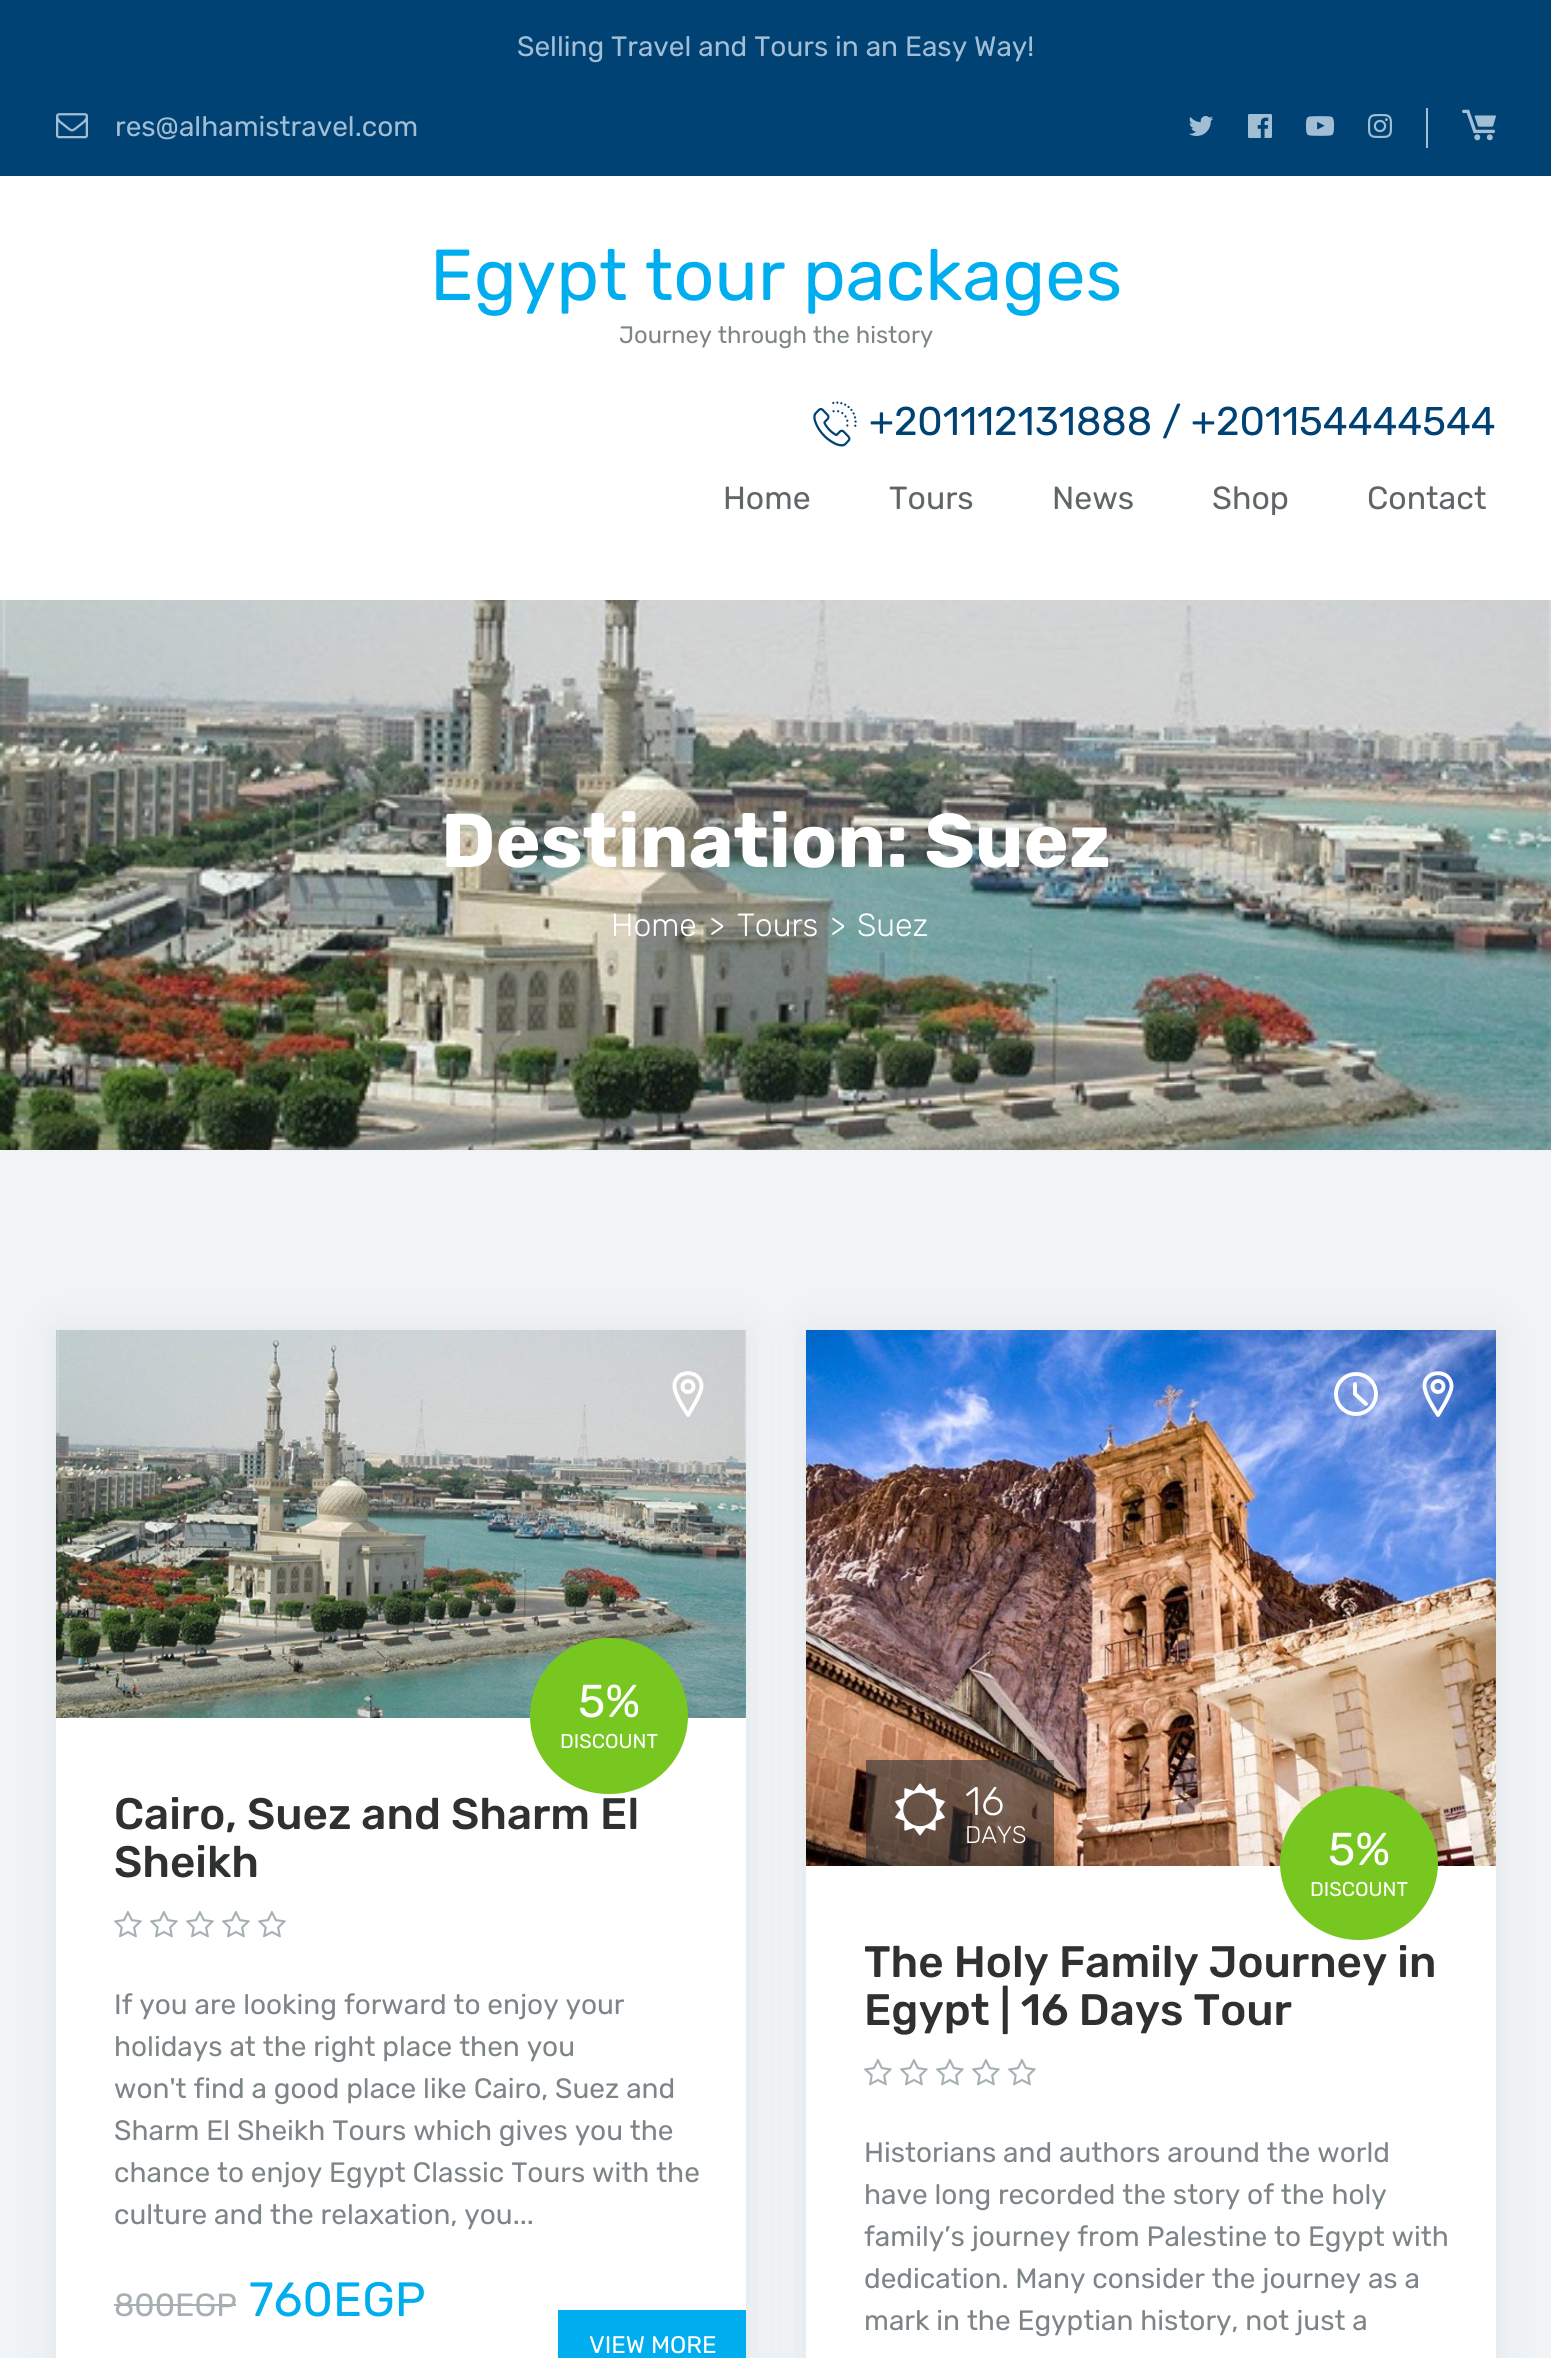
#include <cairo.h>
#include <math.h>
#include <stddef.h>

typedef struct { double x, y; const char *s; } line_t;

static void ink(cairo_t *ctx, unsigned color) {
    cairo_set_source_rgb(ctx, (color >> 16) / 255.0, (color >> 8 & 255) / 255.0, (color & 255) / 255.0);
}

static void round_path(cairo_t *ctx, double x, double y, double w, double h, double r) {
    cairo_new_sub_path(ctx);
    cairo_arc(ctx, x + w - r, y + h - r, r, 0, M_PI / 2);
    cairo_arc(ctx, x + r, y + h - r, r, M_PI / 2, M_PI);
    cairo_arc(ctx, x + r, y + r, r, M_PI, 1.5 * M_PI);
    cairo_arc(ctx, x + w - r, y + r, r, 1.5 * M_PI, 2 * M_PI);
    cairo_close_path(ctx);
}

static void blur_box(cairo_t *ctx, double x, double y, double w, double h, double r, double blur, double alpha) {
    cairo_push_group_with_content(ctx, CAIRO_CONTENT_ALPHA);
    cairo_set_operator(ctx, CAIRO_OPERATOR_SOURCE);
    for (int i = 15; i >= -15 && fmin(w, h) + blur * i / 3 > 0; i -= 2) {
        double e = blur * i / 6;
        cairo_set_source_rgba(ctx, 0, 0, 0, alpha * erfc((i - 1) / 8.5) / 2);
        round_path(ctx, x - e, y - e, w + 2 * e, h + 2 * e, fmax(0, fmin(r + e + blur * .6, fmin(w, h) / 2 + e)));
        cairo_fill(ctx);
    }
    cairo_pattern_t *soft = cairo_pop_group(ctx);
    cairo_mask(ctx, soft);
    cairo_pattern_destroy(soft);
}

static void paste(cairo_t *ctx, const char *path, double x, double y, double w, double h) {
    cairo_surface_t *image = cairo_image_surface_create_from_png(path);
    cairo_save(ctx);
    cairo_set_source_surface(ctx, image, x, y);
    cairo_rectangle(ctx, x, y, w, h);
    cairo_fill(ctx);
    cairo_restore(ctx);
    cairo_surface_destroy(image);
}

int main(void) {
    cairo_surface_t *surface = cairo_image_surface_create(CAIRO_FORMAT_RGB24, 1551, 2358);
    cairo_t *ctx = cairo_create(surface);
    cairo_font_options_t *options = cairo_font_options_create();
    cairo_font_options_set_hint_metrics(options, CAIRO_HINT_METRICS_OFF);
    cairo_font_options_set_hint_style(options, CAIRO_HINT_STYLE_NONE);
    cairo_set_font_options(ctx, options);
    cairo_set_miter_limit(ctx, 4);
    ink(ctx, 0xF1F4F6);
    cairo_paint(ctx);
    ink(ctx, 0x004274);
    cairo_rectangle(ctx, 0, 0, 1551, 176);
    cairo_fill(ctx);
    cairo_select_font_face(ctx, "Rubik", CAIRO_FONT_SLANT_NORMAL, CAIRO_FONT_WEIGHT_NORMAL);
    cairo_set_font_size(ctx, 28);
    ink(ctx, 0xA2BED4);
    cairo_move_to(ctx, 517, 56);
    cairo_show_text(ctx, "Selling Travel and Tours in an Easy Way!");
    paste(ctx, "media/1.png", 56, 113, 32, 26);
    cairo_move_to(ctx, 115, 136);
    cairo_show_text(ctx, "res@alhamistravel.com");
    paste(ctx, "media/2.png", 1188, 116, 26, 20);
    paste(ctx, "media/3.png", 1248, 114, 24, 24);
    paste(ctx, "media/4.png", 1306, 116, 28, 20);
    paste(ctx, "media/5.png", 1368, 114, 24, 24);
    cairo_rectangle(ctx, 1426, 108, 2, 40);
    cairo_fill(ctx);
    paste(ctx, "media/6.png", 1462, 109, 34, 32);
    ink(ctx, 0xFFFFFF);
    cairo_rectangle(ctx, 0, 176, 1551, 424);
    cairo_fill(ctx);
    cairo_set_font_size(ctx, 72);
    ink(ctx, 0x00AEEF);
    cairo_move_to(ctx, 430, 300);
    cairo_show_text(ctx, "Egypt tour packages");
    cairo_set_font_size(ctx, 23.75);
    ink(ctx, 0x7E8588);
    cairo_move_to(ctx, 619, 343);
    cairo_show_text(ctx, "Journey through the history");
    paste(ctx, "media/7.png", 813, 401, 44, 46);
    cairo_set_font_size(ctx, 40);
    ink(ctx, 0x004274);
    cairo_move_to(ctx, 869, 435);
    cairo_show_text(ctx, "+201112131888 / +201154444544");
    cairo_set_font_size(ctx, 32);
    ink(ctx, 0x606668);
    {
        static const line_t items[] = {
            {723, 509, "Home"},
            {889, 509, "Tours"},
            {1052, 509, "News"},
            {1212, 509, "Shop"},
            {1367, 509, "Contact"},
        };
        for (size_t i = 0; i < sizeof items / sizeof *items; i++) {
            cairo_move_to(ctx, items[i].x, items[i].y);
            cairo_show_text(ctx, items[i].s);
        }
    }
    paste(ctx, "media/8.png", 0, 600, 1551, 550);
    cairo_select_font_face(ctx, "Rubik", CAIRO_FONT_SLANT_NORMAL, CAIRO_FONT_WEIGHT_BOLD);
    cairo_set_font_size(ctx, 76);
    ink(ctx, 0xFFFFFF);
    cairo_move_to(ctx, 441, 867);
    cairo_show_text(ctx, "Destination: Suez");
    cairo_select_font_face(ctx, "Rubik Light", CAIRO_FONT_SLANT_NORMAL, CAIRO_FONT_WEIGHT_NORMAL);
    cairo_set_font_size(ctx, 32);
    {
        static const line_t items[] = {
            {611, 936, "Home"},
            {709, 936, ">"},
            {737, 936, "Tours"},
            {830, 936, ">"},
            {857, 936, "Suez"},
        };
        for (size_t i = 0; i < sizeof items / sizeof *items; i++) {
            cairo_move_to(ctx, items[i].x, items[i].y);
            cairo_show_text(ctx, items[i].s);
        }
    }
    ink(ctx, 0x000000);
    blur_box(ctx, 56, 1330, 690, 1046, 0, 24, 0.06);
    ink(ctx, 0xFFFFFF);
    cairo_rectangle(ctx, 56, 1718, 690, 640);
    cairo_fill(ctx);
    paste(ctx, "media/9.png", 56, 1330, 690, 388);
    cairo_new_path(ctx);
    cairo_move_to(ctx, 701.5, 1386.5);
    cairo_curve_to(ctx, 701.5, 1394, 688, 1415, 688, 1415);
    cairo_curve_to(ctx, 683.5, 1408, 675, 1395, 674.5, 1386.5);
    cairo_curve_to(ctx, 673.5, 1369.5, 701.5, 1368, 701.5, 1386.5);
    cairo_close_path(ctx);
    cairo_set_line_width(ctx, 3.9);
    cairo_set_line_cap(ctx, CAIRO_LINE_CAP_ROUND);
    cairo_set_line_join(ctx, CAIRO_LINE_JOIN_ROUND);
    cairo_stroke(ctx);
    cairo_arc(ctx, 688, 1386.5, 5.5, 0, 2 * M_PI);
    cairo_set_line_cap(ctx, CAIRO_LINE_CAP_BUTT);
    cairo_set_line_join(ctx, CAIRO_LINE_JOIN_MITER);
    cairo_stroke(ctx);
    ink(ctx, 0x77C720);
    round_path(ctx, 530, 1638, 158, 156, 78);
    cairo_fill(ctx);
    cairo_select_font_face(ctx, "Rubik", CAIRO_FONT_SLANT_NORMAL, CAIRO_FONT_WEIGHT_NORMAL);
    cairo_set_font_size(ctx, 46);
    ink(ctx, 0xFFFFFF);
    cairo_move_to(ctx, 578, 1717);
    cairo_show_text(ctx, "5%");
    cairo_set_font_size(ctx, 20);
    cairo_move_to(ctx, 560, 1748);
    cairo_show_text(ctx, "DISCOUNT");
    cairo_select_font_face(ctx, "Rubik Medium", CAIRO_FONT_SLANT_NORMAL, CAIRO_FONT_WEIGHT_NORMAL);
    cairo_set_font_size(ctx, 44);
    ink(ctx, 0x2E3031);
    cairo_move_to(ctx, 114, 1829);
    cairo_show_text(ctx, "Cairo, Suez and Sharm El");
    cairo_move_to(ctx, 114, 1877);
    cairo_show_text(ctx, "Sheikh");
    paste(ctx, "media/10.png", 114, 1910, 28, 28);
    paste(ctx, "media/10.png", 150, 1910, 28, 28);
    paste(ctx, "media/10.png", 186, 1910, 28, 28);
    paste(ctx, "media/10.png", 222, 1910, 28, 28);
    paste(ctx, "media/10.png", 258, 1910, 28, 28);
    cairo_select_font_face(ctx, "Rubik", CAIRO_FONT_SLANT_NORMAL, CAIRO_FONT_WEIGHT_NORMAL);
    cairo_set_font_size(ctx, 28);
    ink(ctx, 0x7E8588);
    {
        static const line_t items[] = {
            {114, 2014, "If you are looking forward to enjoy your"},
            {114, 2056, "holidays at the right place then you"},
            {114, 2098, "won't find a good place like Cairo, Suez and"},
            {114, 2140, "Sharm El Sheikh Tours which gives you the"},
            {114, 2182, "chance to enjoy Egypt Classic Tours with the"},
            {114, 2224, "culture and the relaxation, you..."},
        };
        for (size_t i = 0; i < sizeof items / sizeof *items; i++) {
            cairo_move_to(ctx, items[i].x, items[i].y);
            cairo_show_text(ctx, items[i].s);
        }
    }
    cairo_set_font_size(ctx, 32);
    ink(ctx, 0xA6B0B3);
    cairo_move_to(ctx, 114, 2316);
    cairo_show_text(ctx, "800EGP");
    cairo_rectangle(ctx, 114, 2304, 122, 2);
    cairo_fill(ctx);
    cairo_set_font_size(ctx, 48);
    ink(ctx, 0x00AEEF);
    cairo_move_to(ctx, 249, 2316);
    cairo_show_text(ctx, "760EGP");
    cairo_rectangle(ctx, 558, 2310, 188, 48);
    cairo_fill(ctx);
    cairo_set_font_size(ctx, 24);
    ink(ctx, 0xFFFFFF);
    cairo_move_to(ctx, 589, 2353);
    cairo_show_text(ctx, "VIEW MORE");
    ink(ctx, 0x000000);
    blur_box(ctx, 806, 1330, 690, 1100, 0, 24, 0.06);
    ink(ctx, 0xFFFFFF);
    cairo_rectangle(ctx, 806, 1866, 690, 492);
    cairo_fill(ctx);
    paste(ctx, "media/11.png", 806, 1330, 690, 536);
    cairo_arc(ctx, 1356, 1394, 20, 0, 2 * M_PI);
    cairo_stroke(ctx);
    cairo_new_path(ctx);
    cairo_move_to(ctx, 1451.5, 1386.5);
    cairo_curve_to(ctx, 1451.5, 1394, 1438, 1415, 1438, 1415);
    cairo_curve_to(ctx, 1433.5, 1408, 1425, 1395, 1424.5, 1386.5);
    cairo_curve_to(ctx, 1423.5, 1369.5, 1451.5, 1368, 1451.5, 1386.5);
    cairo_close_path(ctx);
    cairo_set_line_cap(ctx, CAIRO_LINE_CAP_ROUND);
    cairo_set_line_join(ctx, CAIRO_LINE_JOIN_ROUND);
    cairo_stroke(ctx);
    cairo_new_path(ctx);
    cairo_move_to(ctx, 1355, 1384);
    cairo_line_to(ctx, 1355, 1394);
    cairo_line_to(ctx, 1366, 1404);
    cairo_stroke(ctx);
    cairo_arc(ctx, 1438, 1386.5, 5.5, 0, 2 * M_PI);
    cairo_set_line_cap(ctx, CAIRO_LINE_CAP_BUTT);
    cairo_set_line_join(ctx, CAIRO_LINE_JOIN_MITER);
    cairo_stroke(ctx);
    cairo_set_source_rgba(ctx, 0.18, 0.188, 0.192, 0.6);
    cairo_rectangle(ctx, 866, 1760, 188, 106);
    cairo_fill(ctx);
    paste(ctx, "media/12.png", 895, 1783, 50, 53);
    cairo_select_font_face(ctx, "Rubik Light", CAIRO_FONT_SLANT_NORMAL, CAIRO_FONT_WEIGHT_NORMAL);
    cairo_set_font_size(ctx, 40);
    ink(ctx, 0xFFFFFF);
    cairo_move_to(ctx, 965, 1815);
    cairo_show_text(ctx, "16");
    cairo_set_font_size(ctx, 24);
    cairo_move_to(ctx, 965, 1843);
    cairo_show_text(ctx, "DAYS");
    ink(ctx, 0x77C720);
    cairo_new_path(ctx);
    cairo_move_to(ctx, 1359, 1786);
    cairo_curve_to(ctx, 1402.5, 1786, 1438, 1820.5, 1438, 1863);
    cairo_curve_to(ctx, 1438, 1905.5, 1402.5, 1940, 1359, 1940);
    cairo_curve_to(ctx, 1315.5, 1940, 1280, 1905.5, 1280, 1863);
    cairo_curve_to(ctx, 1280, 1820.5, 1315.5, 1786, 1359, 1786);
    cairo_close_path(ctx);
    cairo_fill(ctx);
    cairo_select_font_face(ctx, "Rubik", CAIRO_FONT_SLANT_NORMAL, CAIRO_FONT_WEIGHT_NORMAL);
    cairo_set_font_size(ctx, 46);
    ink(ctx, 0xFFFFFF);
    cairo_move_to(ctx, 1328, 1865);
    cairo_show_text(ctx, "5%");
    cairo_set_font_size(ctx, 20);
    cairo_move_to(ctx, 1310, 1896);
    cairo_show_text(ctx, "DISCOUNT");
    cairo_select_font_face(ctx, "Rubik Medium", CAIRO_FONT_SLANT_NORMAL, CAIRO_FONT_WEIGHT_NORMAL);
    cairo_set_font_size(ctx, 44);
    ink(ctx, 0x2E3031);
    cairo_move_to(ctx, 864, 1977);
    cairo_show_text(ctx, "The Holy Family Journey in");
    cairo_move_to(ctx, 864, 2025);
    cairo_show_text(ctx, "Egypt | 16 Days Tour");
    paste(ctx, "media/10.png", 864, 2058, 28, 28);
    paste(ctx, "media/10.png", 900, 2058, 28, 28);
    paste(ctx, "media/10.png", 936, 2058, 28, 28);
    paste(ctx, "media/10.png", 972, 2058, 28, 28);
    paste(ctx, "media/10.png", 1008, 2058, 28, 28);
    cairo_select_font_face(ctx, "Rubik", CAIRO_FONT_SLANT_NORMAL, CAIRO_FONT_WEIGHT_NORMAL);
    cairo_set_font_size(ctx, 28);
    ink(ctx, 0x7E8588);
    {
        static const line_t items[] = {
            {864, 2162, "Historians and authors around the world"},
            {864, 2204, "have long recorded the story of the holy"},
            {864, 2246, "family’s journey from Palestine to Egypt with"},
            {864, 2288, "dedication. Many consider the journey as a"},
            {864, 2330, "mark in the Egyptian history, not just a"},
        };
        for (size_t i = 0; i < sizeof items / sizeof *items; i++) {
            cairo_move_to(ctx, items[i].x, items[i].y);
            cairo_show_text(ctx, items[i].s);
        }
    }
    cairo_surface_write_to_png(surface, "image.png");
    cairo_font_options_destroy(options);
    cairo_destroy(ctx);
    cairo_surface_destroy(surface);
    return 0;
}
